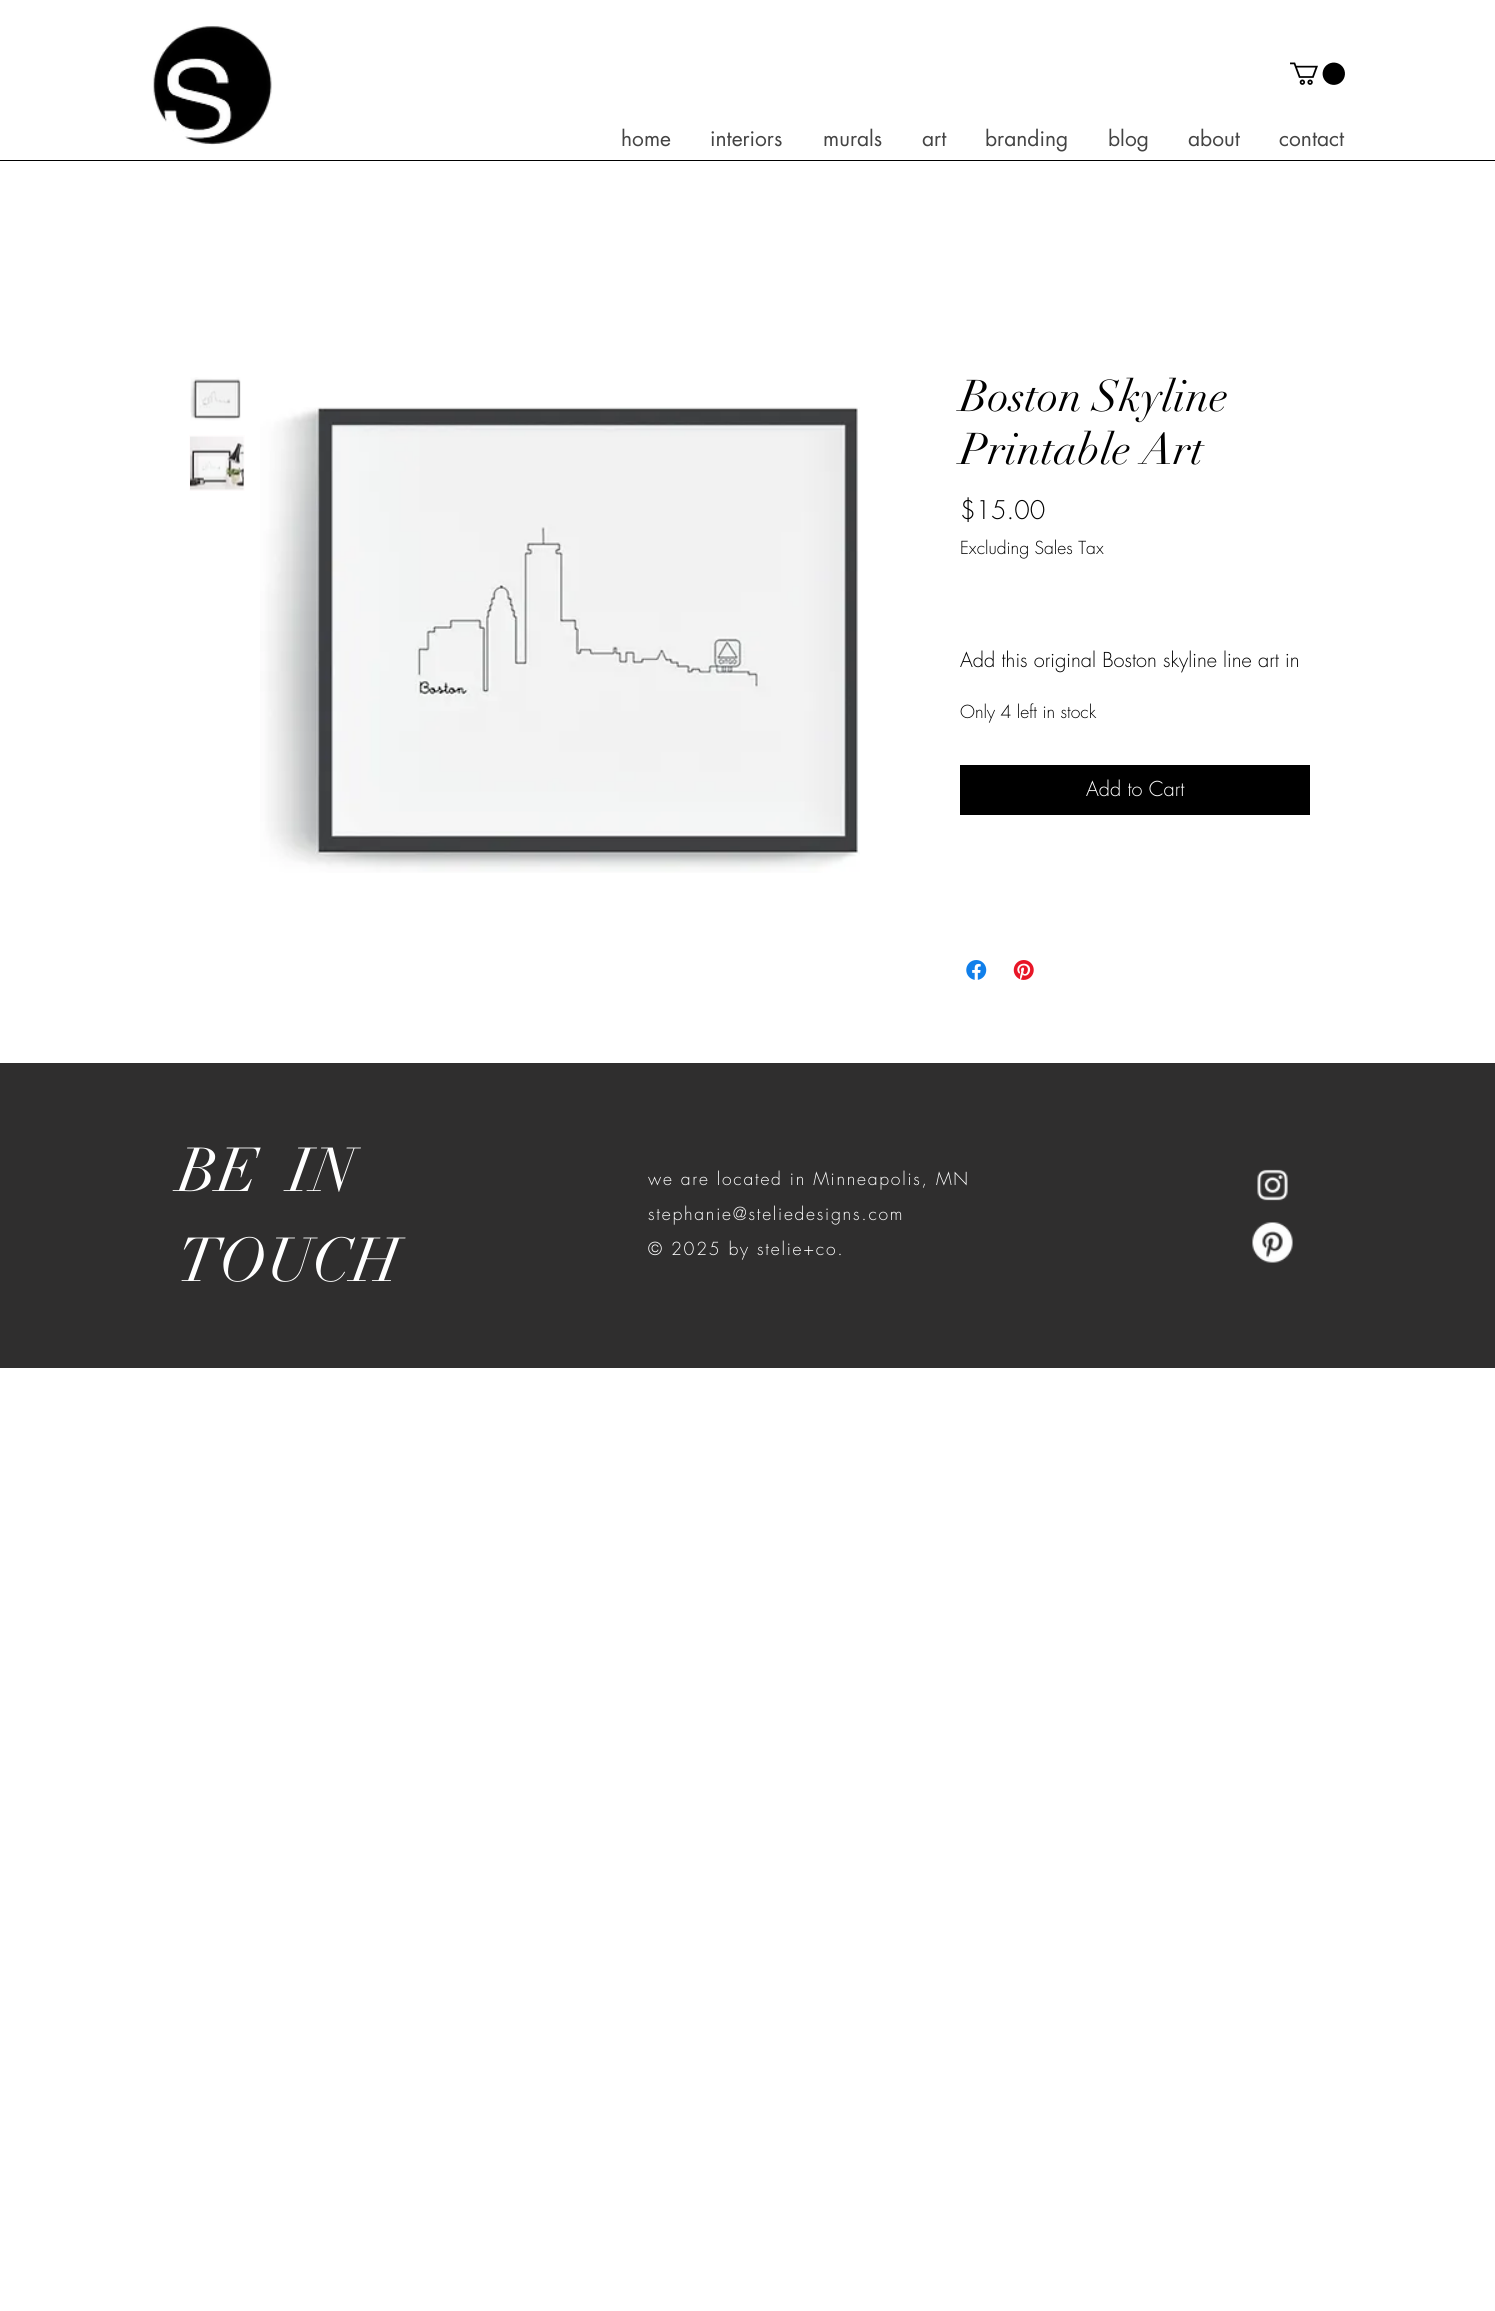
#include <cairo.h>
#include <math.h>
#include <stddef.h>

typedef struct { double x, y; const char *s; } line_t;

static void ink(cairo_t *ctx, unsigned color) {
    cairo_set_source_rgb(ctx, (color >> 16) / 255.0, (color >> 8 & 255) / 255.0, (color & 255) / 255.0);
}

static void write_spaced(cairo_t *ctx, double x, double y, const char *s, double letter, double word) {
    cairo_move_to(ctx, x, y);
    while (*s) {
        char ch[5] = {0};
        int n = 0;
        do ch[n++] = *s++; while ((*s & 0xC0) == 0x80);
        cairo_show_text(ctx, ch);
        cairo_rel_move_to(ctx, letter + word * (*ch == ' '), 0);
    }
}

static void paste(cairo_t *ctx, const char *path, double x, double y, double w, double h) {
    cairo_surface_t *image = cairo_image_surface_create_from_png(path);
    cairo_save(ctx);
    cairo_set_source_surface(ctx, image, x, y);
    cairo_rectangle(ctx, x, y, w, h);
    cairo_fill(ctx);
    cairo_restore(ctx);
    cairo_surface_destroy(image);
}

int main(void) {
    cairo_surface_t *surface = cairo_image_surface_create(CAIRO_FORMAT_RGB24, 1495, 2311);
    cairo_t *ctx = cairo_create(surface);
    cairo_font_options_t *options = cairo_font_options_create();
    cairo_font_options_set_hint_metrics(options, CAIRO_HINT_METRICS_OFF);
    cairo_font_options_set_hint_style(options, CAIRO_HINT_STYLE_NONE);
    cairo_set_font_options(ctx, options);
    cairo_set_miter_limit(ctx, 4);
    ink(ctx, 0xFFFFFF);
    cairo_paint(ctx);
    paste(ctx, "media/1.png", 153, 26, 119, 119);
    paste(ctx, "media/2.png", 1290, 62, 55, 23);
    cairo_select_font_face(ctx, "futura", CAIRO_FONT_SLANT_NORMAL, CAIRO_FONT_WEIGHT_NORMAL);
    cairo_set_font_size(ctx, 21);
    ink(ctx, 0x444444);
    {
        static const line_t items[] = {
            {621, 146, "home"},
            {710, 146, "interiors"},
            {823, 146, "murals"},
            {922, 146, "art"},
            {985, 146, "branding"},
            {1108, 146, "blog"},
            {1188, 146, "about"},
            {1279, 146, "contact"},
        };
        for (size_t i = 0; i < sizeof items / sizeof *items; i++) {
            cairo_move_to(ctx, items[i].x, items[i].y);
            cairo_show_text(ctx, items[i].s);
        }
    }
    ink(ctx, 0x000000);
    cairo_rectangle(ctx, 0, 160, 1495, 1);
    cairo_fill(ctx);
    paste(ctx, "media/3.png", 190, 377, 51, 44);
    cairo_rectangle(ctx, 189.5, 435.5, 55, 55);
    ink(ctx, 0xFFFCFC);
    cairo_set_line_width(ctx, 1);
    cairo_stroke(ctx);
    paste(ctx, "media/4.png", 190, 436, 54, 55);
    paste(ctx, "media/5.png", 260, 407, 600, 466);
    cairo_select_font_face(ctx, "didot", CAIRO_FONT_SLANT_NORMAL, CAIRO_FONT_WEIGHT_NORMAL);
    cairo_set_font_size(ctx, 43.75);
    ink(ctx, 0x000000);
    cairo_move_to(ctx, 960, 411);
    cairo_show_text(ctx, "Boston Skyline");
    cairo_move_to(ctx, 960, 464);
    cairo_show_text(ctx, "Printable Art");
    cairo_select_font_face(ctx, "futura Light", CAIRO_FONT_SLANT_NORMAL, CAIRO_FONT_WEIGHT_NORMAL);
    cairo_set_font_size(ctx, 25);
    cairo_move_to(ctx, 960, 519);
    cairo_show_text(ctx, "$15.00");
    cairo_set_font_size(ctx, 17.5);
    cairo_move_to(ctx, 960, 554);
    cairo_show_text(ctx, "Excluding Sales Tax");
    cairo_set_font_size(ctx, 20);
    cairo_move_to(ctx, 960, 667);
    cairo_show_text(ctx, "Add this original Boston skyline line art in");
    cairo_set_font_size(ctx, 17.5);
    cairo_move_to(ctx, 960, 718);
    cairo_show_text(ctx, "Only 4 left in stock");
    cairo_rectangle(ctx, 960, 765, 350, 50);
    cairo_fill(ctx);
    cairo_set_font_size(ctx, 20);
    ink(ctx, 0xFFFFFF);
    cairo_move_to(ctx, 1086, 796);
    cairo_show_text(ctx, "Add to Cart");
    paste(ctx, "media/6.png", 966, 960, 21, 20);
    paste(ctx, "media/7.png", 1013, 960, 21, 20);
    ink(ctx, 0x2F2E2E);
    cairo_rectangle(ctx, 0, 1063, 1495, 305);
    cairo_fill(ctx);
    cairo_select_font_face(ctx, "didot", CAIRO_FONT_SLANT_NORMAL, CAIRO_FONT_WEIGHT_NORMAL);
    cairo_set_font_size(ctx, 61);
    ink(ctx, 0xFFFFFF);
    cairo_move_to(ctx, 178, 1191);
    cairo_show_text(ctx, "BE  IN");
    cairo_move_to(ctx, 178, 1281);
    cairo_show_text(ctx, "TOUCH");
    cairo_select_font_face(ctx, "futura Light", CAIRO_FONT_SLANT_NORMAL, CAIRO_FONT_WEIGHT_NORMAL);
    cairo_set_font_size(ctx, 17.5);
    {
        static const line_t items[] = {
            {648, 1185, "we are located in Minneapolis, MN"},
            {648, 1220, "stephanie@steliedesigns.com"},
            {648, 1255, "© 2025 by stelie+co."},
        };
        for (size_t i = 0; i < sizeof items / sizeof *items; i++) {
            write_spaced(ctx, items[i].x, items[i].y, items[i].s, 1.75, 0);
        }
    }
    paste(ctx, "media/8.png", 1257, 1169, 31, 32);
    paste(ctx, "media/9.png", 1252, 1222, 41, 41);
    cairo_surface_write_to_png(surface, "image.png");
    cairo_font_options_destroy(options);
    cairo_destroy(ctx);
    cairo_surface_destroy(surface);
    return 0;
}
